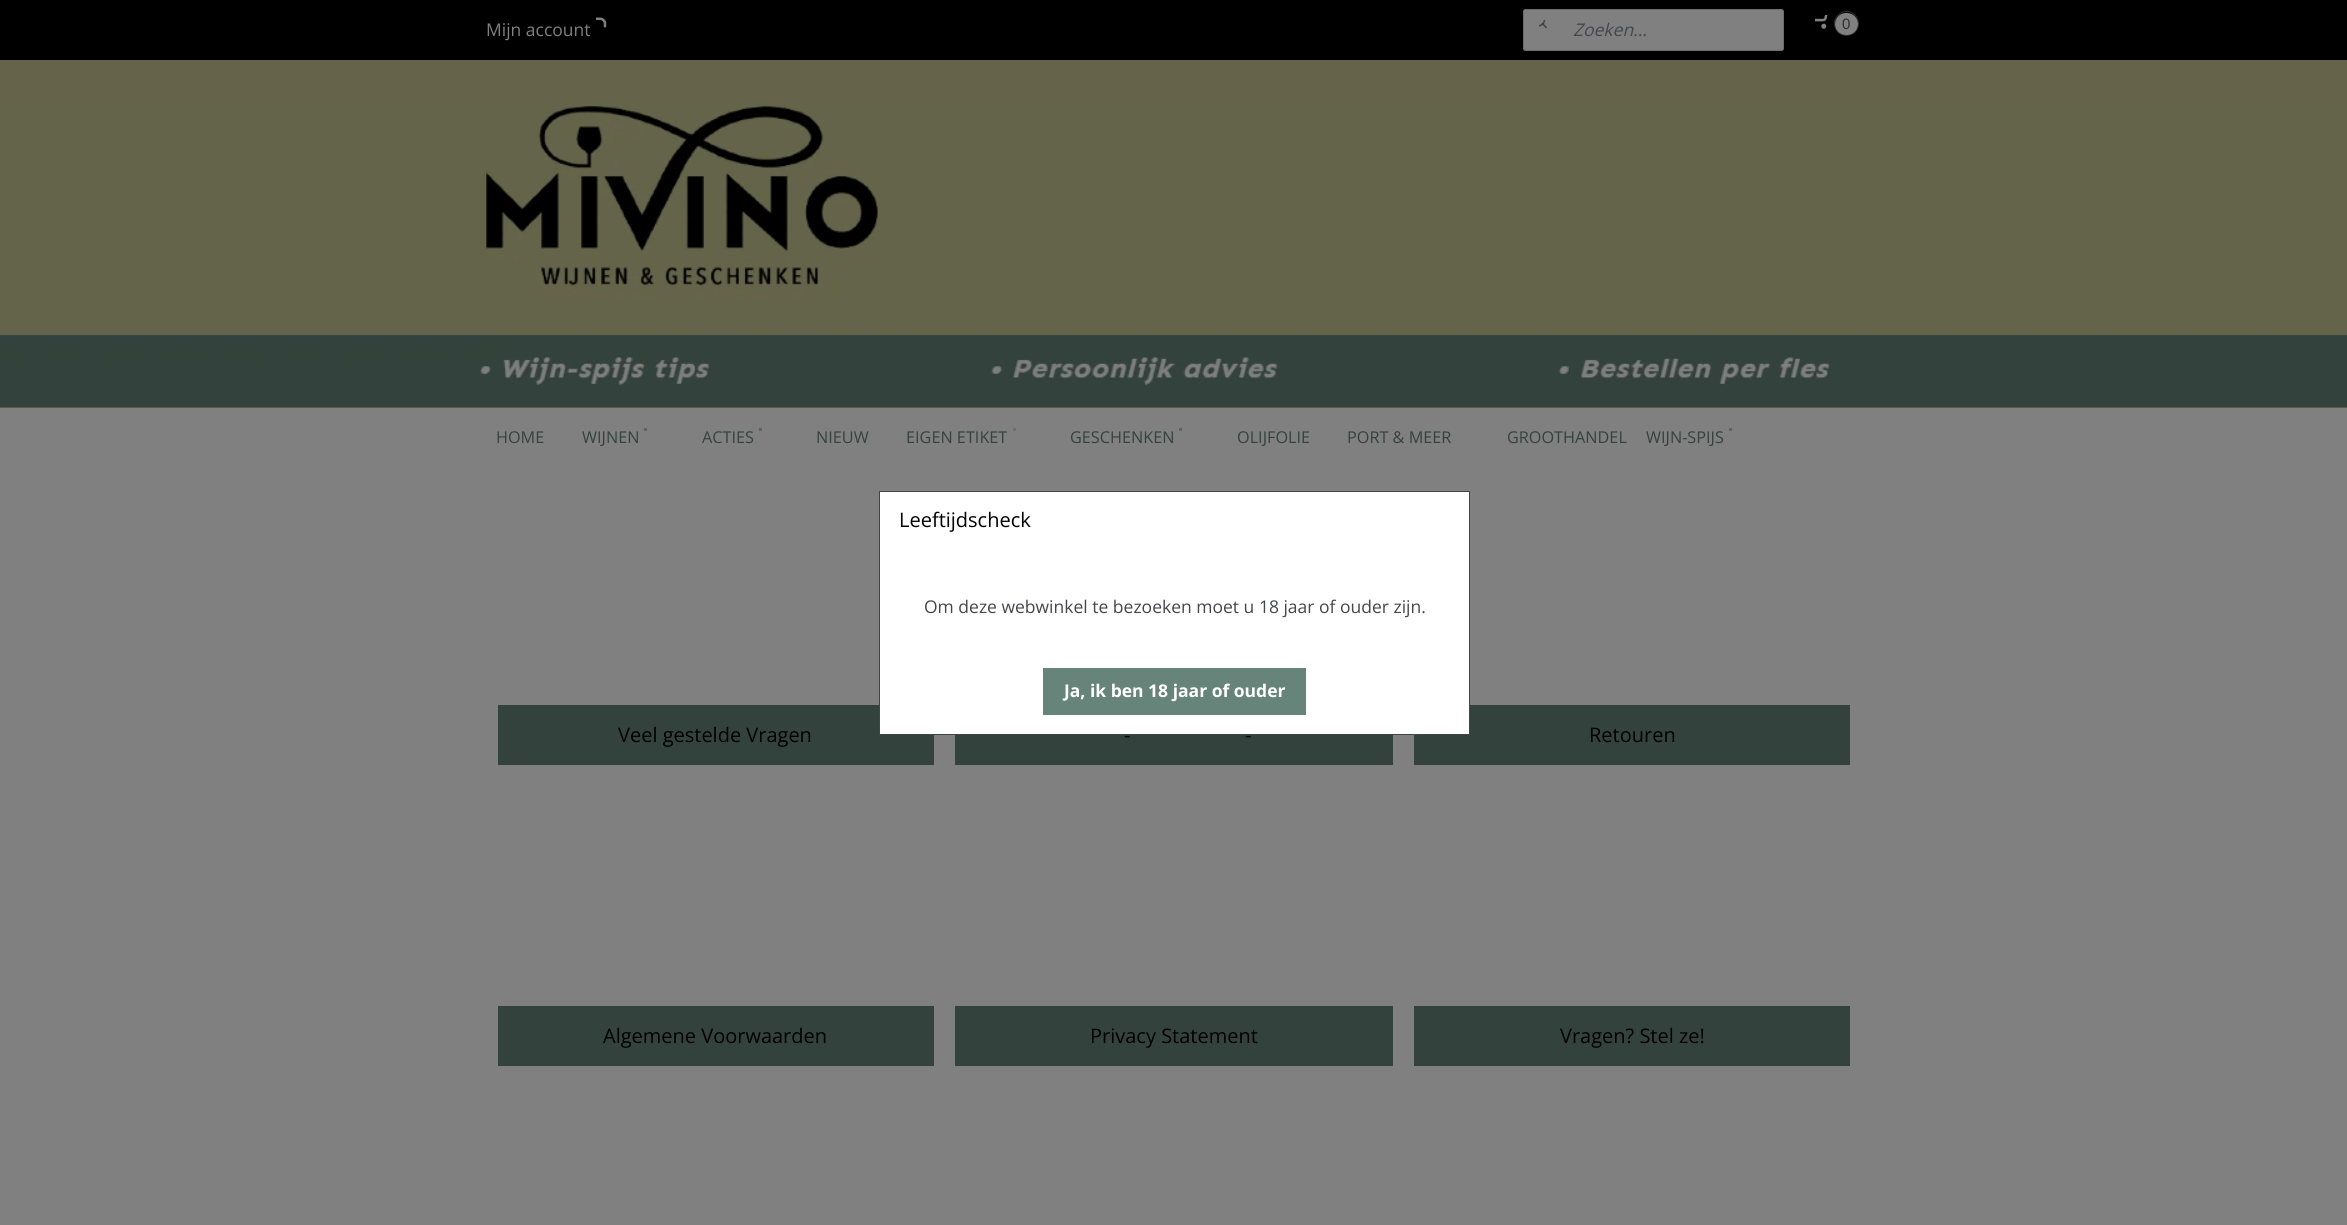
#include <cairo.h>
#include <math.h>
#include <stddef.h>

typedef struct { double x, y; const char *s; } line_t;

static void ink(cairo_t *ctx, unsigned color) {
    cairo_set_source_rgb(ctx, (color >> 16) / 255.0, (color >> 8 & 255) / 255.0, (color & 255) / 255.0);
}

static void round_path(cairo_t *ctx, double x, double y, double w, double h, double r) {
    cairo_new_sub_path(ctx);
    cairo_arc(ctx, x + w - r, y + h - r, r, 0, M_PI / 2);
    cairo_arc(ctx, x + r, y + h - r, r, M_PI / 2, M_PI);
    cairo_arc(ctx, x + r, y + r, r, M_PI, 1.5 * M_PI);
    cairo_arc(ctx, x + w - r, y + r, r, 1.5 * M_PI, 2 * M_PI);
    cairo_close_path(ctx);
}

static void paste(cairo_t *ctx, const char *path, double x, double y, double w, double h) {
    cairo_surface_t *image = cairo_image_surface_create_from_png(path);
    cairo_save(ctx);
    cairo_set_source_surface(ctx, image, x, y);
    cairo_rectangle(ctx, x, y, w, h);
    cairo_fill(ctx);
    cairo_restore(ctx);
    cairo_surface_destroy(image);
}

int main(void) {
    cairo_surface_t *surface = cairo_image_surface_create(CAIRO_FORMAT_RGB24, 2347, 1225);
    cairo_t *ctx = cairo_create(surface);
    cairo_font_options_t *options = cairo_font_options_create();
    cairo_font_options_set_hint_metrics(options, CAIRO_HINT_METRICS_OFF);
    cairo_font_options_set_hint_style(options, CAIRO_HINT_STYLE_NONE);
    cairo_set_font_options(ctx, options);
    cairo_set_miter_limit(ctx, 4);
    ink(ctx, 0x808080);
    cairo_paint(ctx);
    ink(ctx, 0x65644A);
    cairo_rectangle(ctx, 0, 60, 2347, 348);
    cairo_fill(ctx);
    ink(ctx, 0x000000);
    cairo_rectangle(ctx, 0, 0, 2347, 60);
    cairo_fill(ctx);
    cairo_select_font_face(ctx, "Open Sans", CAIRO_FONT_SLANT_NORMAL, CAIRO_FONT_WEIGHT_NORMAL);
    cairo_set_font_size(ctx, 17.5);
    ink(ctx, 0x808080);
    cairo_move_to(ctx, 486, 36);
    cairo_show_text(ctx, "Mijn account");
    paste(ctx, "media/1.png", 596, 17, 11, 11);
    round_path(ctx, 1523.5, 9.5, 260, 41, 2);
    cairo_fill_preserve(ctx);
    ink(ctx, 0x6A6B6D);
    cairo_set_line_width(ctx, 1);
    cairo_stroke(ctx);
    paste(ctx, "media/2.png", 1539, 20, 8, 9);
    cairo_select_font_face(ctx, "Open Sans", CAIRO_FONT_SLANT_ITALIC, CAIRO_FONT_WEIGHT_NORMAL);
    ink(ctx, 0x454649);
    cairo_move_to(ctx, 1573, 36);
    cairo_show_text(ctx, "Zoeken...");
    paste(ctx, "media/3.png", 1815, 15, 13, 14);
    cairo_arc(ctx, 1846.5, 23.5, 12, 0, 2 * M_PI);
    ink(ctx, 0x2C2E31);
    cairo_stroke(ctx);
    ink(ctx, 0x808080);
    round_path(ctx, 1835, 13, 23, 22, 11);
    cairo_fill(ctx);
    cairo_select_font_face(ctx, "Liberation Sans", CAIRO_FONT_SLANT_NORMAL, CAIRO_FONT_WEIGHT_NORMAL);
    cairo_set_font_size(ctx, 15);
    ink(ctx, 0x2C2E31);
    cairo_move_to(ctx, 1842, 29);
    cairo_show_text(ctx, "0");
    paste(ctx, "media/4.png", 0, 101, 2347, 307);
    cairo_select_font_face(ctx, "Open Sans", CAIRO_FONT_SLANT_NORMAL, CAIRO_FONT_WEIGHT_NORMAL);
    cairo_set_font_size(ctx, 16.25);
    ink(ctx, 0x34423D);
    cairo_move_to(ctx, 496, 443);
    cairo_show_text(ctx, "HOME");
    ink(ctx, 0x5F6563);
    cairo_rectangle(ctx, 644, 428, 3, 3);
    cairo_fill(ctx);
    ink(ctx, 0x34423D);
    cairo_move_to(ctx, 582, 443);
    cairo_show_text(ctx, "WIJNEN");
    ink(ctx, 0x5F6563);
    cairo_rectangle(ctx, 759, 428, 3, 3);
    cairo_fill(ctx);
    ink(ctx, 0x34423D);
    cairo_move_to(ctx, 702, 443);
    cairo_show_text(ctx, "ACTIES");
    cairo_move_to(ctx, 816, 443);
    cairo_show_text(ctx, "NIEUW");
    ink(ctx, 0x6D706F);
    cairo_rectangle(ctx, 1013, 428, 3, 3);
    cairo_fill(ctx);
    ink(ctx, 0x34423D);
    cairo_move_to(ctx, 906, 443);
    cairo_show_text(ctx, "EIGEN ETIKET");
    ink(ctx, 0x5F6563);
    cairo_rectangle(ctx, 1179, 428, 3, 3);
    cairo_fill(ctx);
    ink(ctx, 0x34423D);
    {
        static const line_t items[] = {
            {1070, 443, "GESCHENKEN"},
            {1237, 443, "OLIJFOLIE"},
            {1347, 443, "PORT & MEER"},
            {1507, 443, "GROOTHANDEL"},
        };
        for (size_t i = 0; i < sizeof items / sizeof *items; i++) {
            cairo_move_to(ctx, items[i].x, items[i].y);
            cairo_show_text(ctx, items[i].s);
        }
    }
    ink(ctx, 0x5F6563);
    cairo_rectangle(ctx, 1729, 428, 3, 3);
    cairo_fill(ctx);
    ink(ctx, 0x34423D);
    cairo_move_to(ctx, 1646, 443);
    cairo_show_text(ctx, "WIJN-SPIJS");
    cairo_rectangle(ctx, 498, 705, 436, 60);
    cairo_fill(ctx);
    cairo_set_font_size(ctx, 20);
    ink(ctx, 0x000000);
    cairo_move_to(ctx, 618, 742);
    cairo_show_text(ctx, "Veel gestelde Vragen");
    ink(ctx, 0x34423D);
    cairo_rectangle(ctx, 955, 735, 438, 30);
    cairo_fill(ctx);
    ink(ctx, 0x000000);
    cairo_move_to(ctx, 1124, 742);
    cairo_show_text(ctx, "-");
    cairo_move_to(ctx, 1245, 742);
    cairo_show_text(ctx, "-");
    ink(ctx, 0x34423D);
    cairo_rectangle(ctx, 1414, 705, 436, 60);
    cairo_fill(ctx);
    ink(ctx, 0x000000);
    cairo_move_to(ctx, 1589, 742);
    cairo_show_text(ctx, "Retouren");
    ink(ctx, 0x34423D);
    cairo_rectangle(ctx, 498, 1006, 436, 60);
    cairo_fill(ctx);
    ink(ctx, 0x000000);
    cairo_move_to(ctx, 603, 1043);
    cairo_show_text(ctx, "Algemene Voorwaarden");
    ink(ctx, 0x34423D);
    cairo_rectangle(ctx, 955, 1006, 438, 60);
    cairo_fill(ctx);
    ink(ctx, 0x000000);
    cairo_move_to(ctx, 1090, 1043);
    cairo_show_text(ctx, "Privacy Statement");
    ink(ctx, 0x34423D);
    cairo_rectangle(ctx, 1414, 1006, 436, 60);
    cairo_fill(ctx);
    ink(ctx, 0x000000);
    cairo_move_to(ctx, 1560, 1043);
    cairo_show_text(ctx, "Vragen? Stel ze!");
    ink(ctx, 0xFFFFFF);
    cairo_rectangle(ctx, 879.5, 491.5, 590, 243);
    cairo_fill_preserve(ctx);
    ink(ctx, 0x444444);
    cairo_stroke(ctx);
    ink(ctx, 0x000000);
    cairo_move_to(ctx, 899, 527);
    cairo_show_text(ctx, "Leeftijdscheck");
    cairo_set_font_size(ctx, 17.5);
    ink(ctx, 0x454649);
    cairo_move_to(ctx, 924, 613);
    cairo_show_text(ctx, "Om deze webwinkel te bezoeken moet u 18 jaar of ouder zijn.");
    ink(ctx, 0x67847A);
    cairo_rectangle(ctx, 1043, 668, 263, 47);
    cairo_fill(ctx);
    cairo_select_font_face(ctx, "Open Sans", CAIRO_FONT_SLANT_NORMAL, CAIRO_FONT_WEIGHT_BOLD);
    ink(ctx, 0xFFFFFF);
    cairo_move_to(ctx, 1064, 697);
    cairo_show_text(ctx, "Ja, ik ben 18 jaar of ouder");
    cairo_surface_write_to_png(surface, "image.png");
    cairo_font_options_destroy(options);
    cairo_destroy(ctx);
    cairo_surface_destroy(surface);
    return 0;
}
